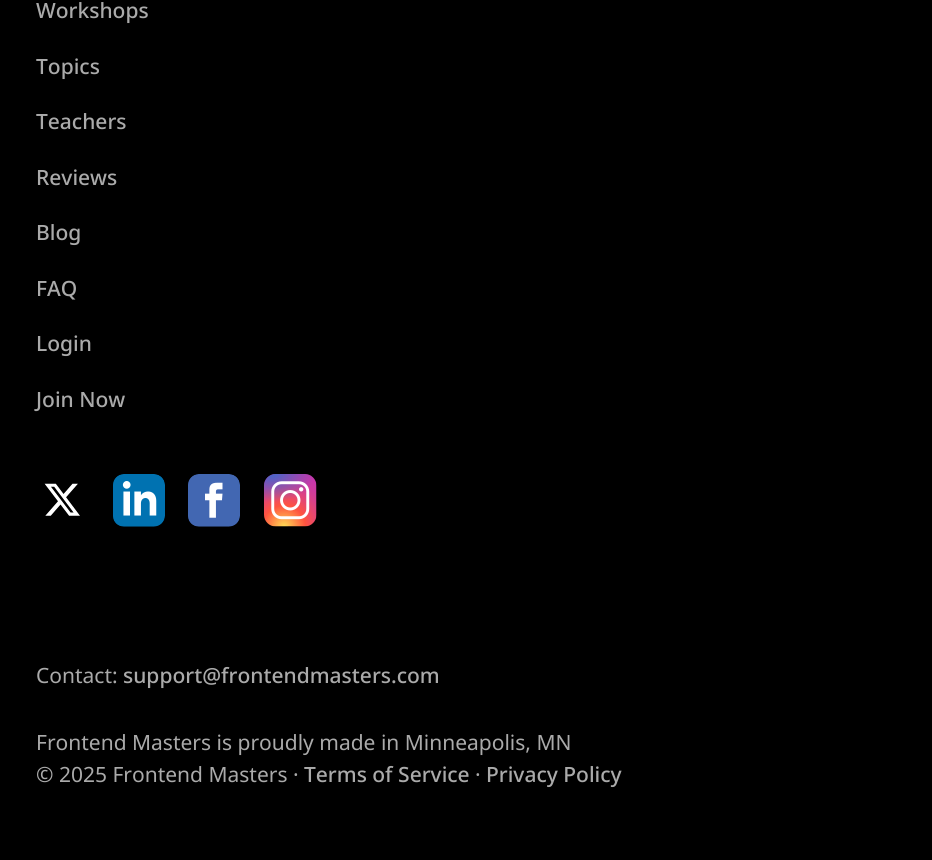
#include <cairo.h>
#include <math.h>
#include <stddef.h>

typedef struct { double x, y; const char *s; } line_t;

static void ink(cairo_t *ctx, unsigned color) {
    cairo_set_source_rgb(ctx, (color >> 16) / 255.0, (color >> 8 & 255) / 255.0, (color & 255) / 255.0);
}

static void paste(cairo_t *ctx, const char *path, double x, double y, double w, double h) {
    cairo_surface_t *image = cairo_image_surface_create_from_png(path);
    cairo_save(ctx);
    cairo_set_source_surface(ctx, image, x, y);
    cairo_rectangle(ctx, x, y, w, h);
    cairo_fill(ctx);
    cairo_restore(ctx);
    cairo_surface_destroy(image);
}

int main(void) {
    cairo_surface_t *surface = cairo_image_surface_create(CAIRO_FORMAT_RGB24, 932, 860);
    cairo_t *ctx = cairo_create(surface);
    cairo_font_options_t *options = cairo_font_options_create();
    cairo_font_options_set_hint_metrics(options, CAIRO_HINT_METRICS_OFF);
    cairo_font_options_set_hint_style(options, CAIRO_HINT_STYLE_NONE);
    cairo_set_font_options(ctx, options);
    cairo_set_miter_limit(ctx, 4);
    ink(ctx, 0x000000);
    cairo_paint(ctx);
    cairo_select_font_face(ctx, "Noto Sans Medium", CAIRO_FONT_SLANT_NORMAL, CAIRO_FONT_WEIGHT_NORMAL);
    cairo_set_font_size(ctx, 21);
    ink(ctx, 0xAAAAAA);
    {
        static const line_t items[] = {
            {36, 18, "Workshops"},
            {36, 74, "Topics"},
            {36, 129, "Teachers"},
            {36, 185, "Reviews"},
            {36, 240, "Blog"},
            {36, 296, "FAQ"},
            {36, 351, "Login"},
            {36, 407, "Join Now"},
        };
        for (size_t i = 0; i < sizeof items / sizeof *items; i++) {
            cairo_move_to(ctx, items[i].x, items[i].y);
            cairo_show_text(ctx, items[i].s);
        }
    }
    paste(ctx, "media/1.png", 44, 483, 36, 33);
    paste(ctx, "media/2.png", 113, 474, 52, 53);
    paste(ctx, "media/3.png", 188, 474, 52, 53);
    paste(ctx, "media/4.png", 264, 474, 53, 53);
    cairo_select_font_face(ctx, "Noto Sans", CAIRO_FONT_SLANT_NORMAL, CAIRO_FONT_WEIGHT_NORMAL);
    cairo_move_to(ctx, 36, 683);
    cairo_show_text(ctx, "Contact:");
    cairo_select_font_face(ctx, "Noto Sans Medium", CAIRO_FONT_SLANT_NORMAL, CAIRO_FONT_WEIGHT_NORMAL);
    cairo_move_to(ctx, 123, 683);
    cairo_show_text(ctx, "support@frontendmasters.com");
    cairo_select_font_face(ctx, "Noto Sans", CAIRO_FONT_SLANT_NORMAL, CAIRO_FONT_WEIGHT_NORMAL);
    cairo_move_to(ctx, 36, 750);
    cairo_show_text(ctx, "Frontend Masters is proudly made in Minneapolis, MN");
    cairo_move_to(ctx, 36, 782);
    cairo_show_text(ctx, "© 2025 Frontend Masters ·");
    cairo_select_font_face(ctx, "Noto Sans Medium", CAIRO_FONT_SLANT_NORMAL, CAIRO_FONT_WEIGHT_NORMAL);
    cairo_move_to(ctx, 304, 782);
    cairo_show_text(ctx, "Terms of Service");
    cairo_select_font_face(ctx, "Noto Sans", CAIRO_FONT_SLANT_NORMAL, CAIRO_FONT_WEIGHT_NORMAL);
    cairo_move_to(ctx, 475, 782);
    cairo_show_text(ctx, "·");
    cairo_select_font_face(ctx, "Noto Sans Medium", CAIRO_FONT_SLANT_NORMAL, CAIRO_FONT_WEIGHT_NORMAL);
    cairo_move_to(ctx, 486, 782);
    cairo_show_text(ctx, "Privacy Policy");
    cairo_surface_write_to_png(surface, "image.png");
    cairo_font_options_destroy(options);
    cairo_destroy(ctx);
    cairo_surface_destroy(surface);
    return 0;
}
